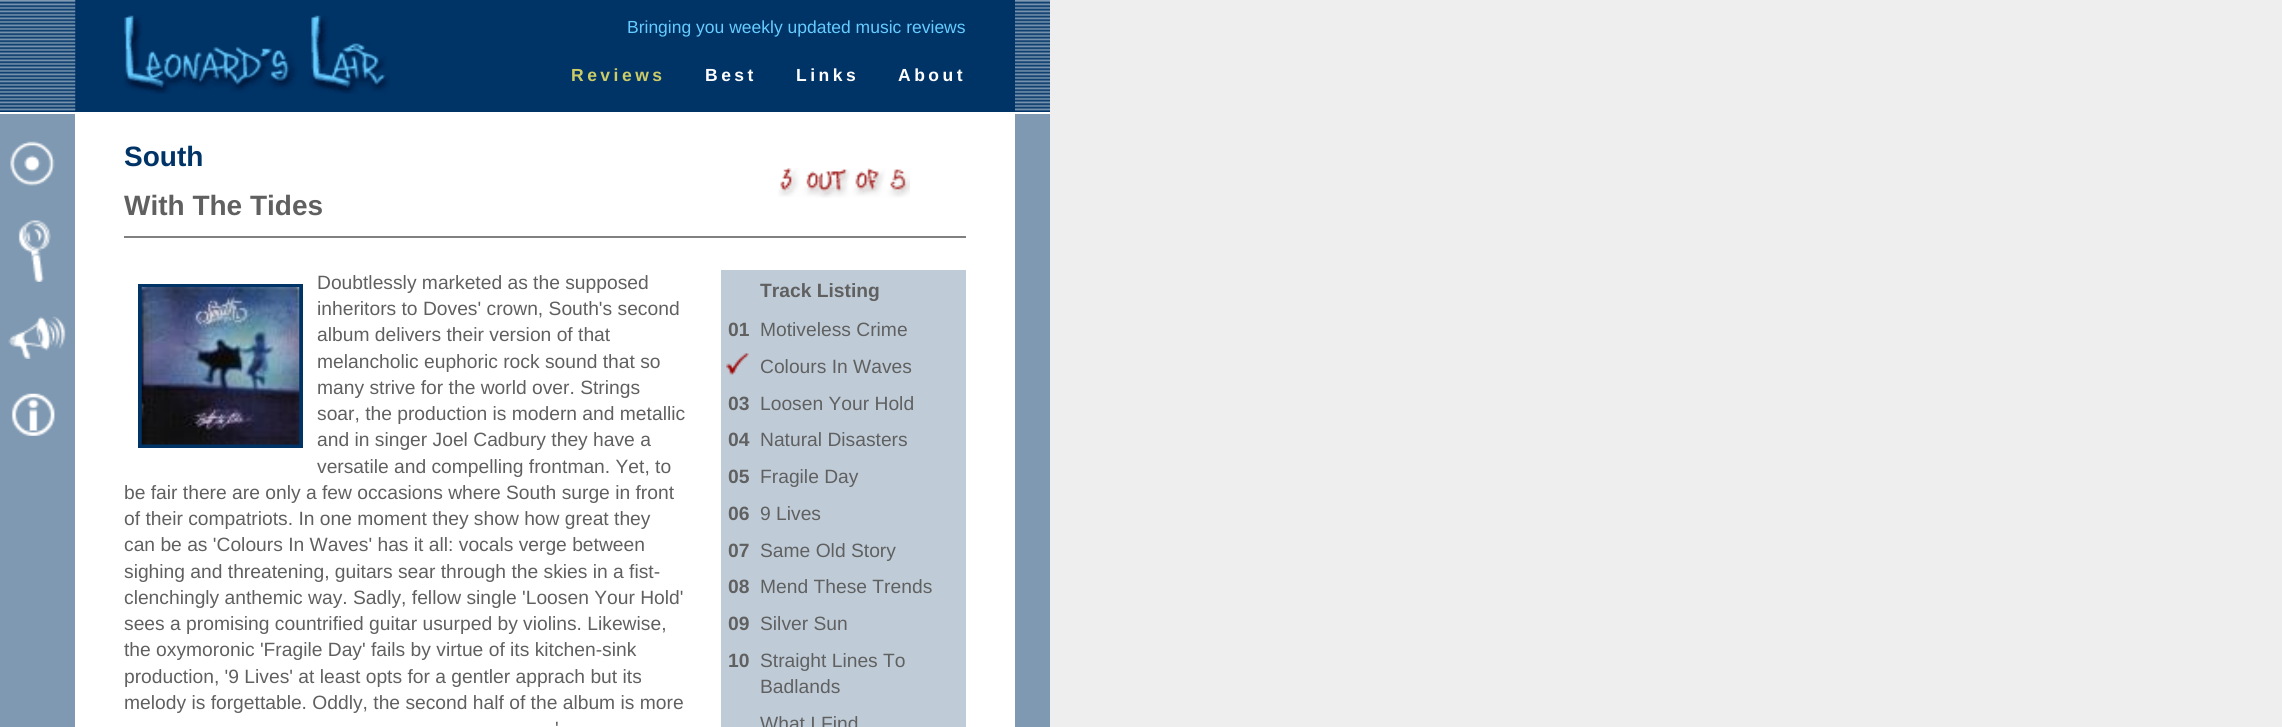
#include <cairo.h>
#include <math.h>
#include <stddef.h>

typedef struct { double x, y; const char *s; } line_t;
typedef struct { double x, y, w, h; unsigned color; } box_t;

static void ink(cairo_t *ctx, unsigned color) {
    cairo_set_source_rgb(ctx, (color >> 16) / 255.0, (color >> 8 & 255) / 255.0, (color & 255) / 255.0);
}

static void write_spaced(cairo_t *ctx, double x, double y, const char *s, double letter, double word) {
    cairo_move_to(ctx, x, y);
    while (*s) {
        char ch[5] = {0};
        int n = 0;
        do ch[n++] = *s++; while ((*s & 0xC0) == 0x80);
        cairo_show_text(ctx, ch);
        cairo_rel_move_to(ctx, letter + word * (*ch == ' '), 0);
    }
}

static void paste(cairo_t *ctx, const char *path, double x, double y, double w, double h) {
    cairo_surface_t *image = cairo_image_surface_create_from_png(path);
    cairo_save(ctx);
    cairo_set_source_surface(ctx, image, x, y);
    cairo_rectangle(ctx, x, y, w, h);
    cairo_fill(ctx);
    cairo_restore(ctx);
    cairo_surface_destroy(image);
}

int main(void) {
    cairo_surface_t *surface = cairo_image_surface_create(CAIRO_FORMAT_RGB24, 2282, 727);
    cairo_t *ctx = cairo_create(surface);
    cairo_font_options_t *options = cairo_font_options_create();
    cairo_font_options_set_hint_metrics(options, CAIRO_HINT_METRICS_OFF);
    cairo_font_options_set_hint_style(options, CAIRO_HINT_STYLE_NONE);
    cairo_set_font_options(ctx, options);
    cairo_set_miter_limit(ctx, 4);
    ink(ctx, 0xEEEEEE);
    cairo_paint(ctx);
    ink(ctx, 0x003366);
    cairo_rectangle(ctx, 0, 0, 1050, 112);
    cairo_fill(ctx);
    paste(ctx, "media/1.png", 0, 0, 76, 111);
    paste(ctx, "media/2.png", 124, 15, 266, 79);
    cairo_select_font_face(ctx, "Liberation Sans", CAIRO_FONT_SLANT_NORMAL, CAIRO_FONT_WEIGHT_NORMAL);
    cairo_set_font_size(ctx, 17.5);
    ink(ctx, 0x66CCFF);
    cairo_move_to(ctx, 627, 33);
    cairo_show_text(ctx, "Bringing you weekly updated music reviews");
    cairo_select_font_face(ctx, "Liberation Sans", CAIRO_FONT_SLANT_NORMAL, CAIRO_FONT_WEIGHT_BOLD);
    ink(ctx, 0xCCCC66);
    write_spaced(ctx, 571, 81, "Reviews", 3.5, 0);
    ink(ctx, 0xFFFFFF);
    {
        static const line_t items[] = {
            {705, 81, "Best"},
            {796, 81, "Links"},
            {898, 81, "About"},
        };
        for (size_t i = 0; i < sizeof items / sizeof *items; i++) {
            write_spaced(ctx, items[i].x, items[i].y, items[i].s, 3.5, 0);
        }
    }
    paste(ctx, "media/3.png", 1015, 0, 35, 111);
    {
        static const box_t items[] = {
            {0, 112, 1050, 615, 0xFFFFFF},
            {0, 114, 75, 613, 0x7F99B2},
            {1015, 114, 35, 613, 0x7F99B2},
        };
        for (size_t i = 0; i < sizeof items / sizeof *items; i++) {
            ink(ctx, items[i].color);
            cairo_rectangle(ctx, items[i].x, items[i].y, items[i].w, items[i].h);
            cairo_fill(ctx);
        }
    }
    paste(ctx, "media/4.png", 10, 141, 45, 45);
    paste(ctx, "media/5.png", 18, 220, 33, 62);
    paste(ctx, "media/6.png", 8, 316, 58, 43);
    paste(ctx, "media/7.png", 11, 393, 44, 43);
    cairo_set_font_size(ctx, 28);
    ink(ctx, 0x003366);
    cairo_move_to(ctx, 124, 166);
    cairo_show_text(ctx, "South");
    paste(ctx, "media/8.png", 778, 168, 29, 29);
    paste(ctx, "media/9.png", 806, 168, 104, 30);
    ink(ctx, 0x606060);
    cairo_move_to(ctx, 124, 215);
    cairo_show_text(ctx, "With The Tides");
    ink(ctx, 0x808080);
    cairo_rectangle(ctx, 124, 236, 842, 2);
    cairo_fill(ctx);
    cairo_rectangle(ctx, 140, 286, 161, 160);
    ink(ctx, 0x003366);
    cairo_set_line_width(ctx, 4);
    cairo_stroke(ctx);
    paste(ctx, "media/10.png", 141, 287, 159, 158);
    cairo_select_font_face(ctx, "Liberation Sans", CAIRO_FONT_SLANT_NORMAL, CAIRO_FONT_WEIGHT_NORMAL);
    cairo_set_font_size(ctx, 19.25);
    ink(ctx, 0x606060);
    {
        static const line_t items[] = {
            {317, 289, "Doubtlessly marketed as the supposed"},
            {317, 315, "inheritors to Doves' crown, South's second"},
            {317, 341, "album delivers their version of that"},
            {317, 368, "melancholic euphoric rock sound that so"},
            {317, 394, "many strive for the world over. Strings"},
            {317, 420, "soar, the production is modern and metallic"},
            {317, 446, "and in singer Joel Cadbury they have a"},
            {317, 473, "versatile and compelling frontman. Yet, to"},
            {124, 499, "be fair there are only a few occasions where South surge in front"},
            {124, 525, "of their compatriots. In one moment they show how great they"},
            {124, 551, "can be as 'Colours In Waves' has it all: vocals verge between"},
            {124, 578, "sighing and threatening, guitars sear through the skies in a fist-"},
            {124, 604, "clenchingly anthemic way. Sadly, fellow single 'Loosen Your Hold'"},
            {124, 630, "sees a promising countrified guitar usurped by violins. Likewise,"},
            {124, 656, "the oxymoronic 'Fragile Day' fails by virtue of its kitchen-sink"},
            {124, 683, "production, '9 Lives' at least opts for a gentler apprach but its"},
            {124, 709, "melody is forgettable. Oddly, the second half of the album is more"},
            {555, 735, "'"},
        };
        for (size_t i = 0; i < sizeof items / sizeof *items; i++) {
            cairo_move_to(ctx, items[i].x, items[i].y);
            cairo_show_text(ctx, items[i].s);
        }
    }
    ink(ctx, 0xBFCCD8);
    cairo_rectangle(ctx, 721, 270, 245, 457);
    cairo_fill(ctx);
    cairo_select_font_face(ctx, "Liberation Sans", CAIRO_FONT_SLANT_NORMAL, CAIRO_FONT_WEIGHT_BOLD);
    ink(ctx, 0x606060);
    cairo_move_to(ctx, 760, 297);
    cairo_show_text(ctx, "Track Listing");
    cairo_move_to(ctx, 728, 336);
    cairo_show_text(ctx, "01");
    cairo_select_font_face(ctx, "Liberation Sans", CAIRO_FONT_SLANT_NORMAL, CAIRO_FONT_WEIGHT_NORMAL);
    cairo_move_to(ctx, 760, 336);
    cairo_show_text(ctx, "Motiveless Crime");
    paste(ctx, "media/11.png", 726, 353, 23, 22);
    cairo_move_to(ctx, 760, 373);
    cairo_show_text(ctx, "Colours In Waves");
    cairo_select_font_face(ctx, "Liberation Sans", CAIRO_FONT_SLANT_NORMAL, CAIRO_FONT_WEIGHT_BOLD);
    cairo_move_to(ctx, 728, 410);
    cairo_show_text(ctx, "03");
    cairo_select_font_face(ctx, "Liberation Sans", CAIRO_FONT_SLANT_NORMAL, CAIRO_FONT_WEIGHT_NORMAL);
    cairo_move_to(ctx, 760, 410);
    cairo_show_text(ctx, "Loosen Your Hold");
    cairo_select_font_face(ctx, "Liberation Sans", CAIRO_FONT_SLANT_NORMAL, CAIRO_FONT_WEIGHT_BOLD);
    cairo_move_to(ctx, 728, 446);
    cairo_show_text(ctx, "04");
    cairo_select_font_face(ctx, "Liberation Sans", CAIRO_FONT_SLANT_NORMAL, CAIRO_FONT_WEIGHT_NORMAL);
    cairo_move_to(ctx, 760, 446);
    cairo_show_text(ctx, "Natural Disasters");
    cairo_select_font_face(ctx, "Liberation Sans", CAIRO_FONT_SLANT_NORMAL, CAIRO_FONT_WEIGHT_BOLD);
    cairo_move_to(ctx, 728, 483);
    cairo_show_text(ctx, "05");
    cairo_select_font_face(ctx, "Liberation Sans", CAIRO_FONT_SLANT_NORMAL, CAIRO_FONT_WEIGHT_NORMAL);
    cairo_move_to(ctx, 760, 483);
    cairo_show_text(ctx, "Fragile Day");
    cairo_select_font_face(ctx, "Liberation Sans", CAIRO_FONT_SLANT_NORMAL, CAIRO_FONT_WEIGHT_BOLD);
    cairo_move_to(ctx, 728, 520);
    cairo_show_text(ctx, "06");
    cairo_select_font_face(ctx, "Liberation Sans", CAIRO_FONT_SLANT_NORMAL, CAIRO_FONT_WEIGHT_NORMAL);
    cairo_move_to(ctx, 760, 520);
    cairo_show_text(ctx, "9 Lives");
    cairo_select_font_face(ctx, "Liberation Sans", CAIRO_FONT_SLANT_NORMAL, CAIRO_FONT_WEIGHT_BOLD);
    cairo_move_to(ctx, 728, 557);
    cairo_show_text(ctx, "07");
    cairo_select_font_face(ctx, "Liberation Sans", CAIRO_FONT_SLANT_NORMAL, CAIRO_FONT_WEIGHT_NORMAL);
    cairo_move_to(ctx, 760, 557);
    cairo_show_text(ctx, "Same Old Story");
    cairo_select_font_face(ctx, "Liberation Sans", CAIRO_FONT_SLANT_NORMAL, CAIRO_FONT_WEIGHT_BOLD);
    cairo_move_to(ctx, 728, 593);
    cairo_show_text(ctx, "08");
    cairo_select_font_face(ctx, "Liberation Sans", CAIRO_FONT_SLANT_NORMAL, CAIRO_FONT_WEIGHT_NORMAL);
    cairo_move_to(ctx, 760, 593);
    cairo_show_text(ctx, "Mend These Trends");
    cairo_select_font_face(ctx, "Liberation Sans", CAIRO_FONT_SLANT_NORMAL, CAIRO_FONT_WEIGHT_BOLD);
    cairo_move_to(ctx, 728, 630);
    cairo_show_text(ctx, "09");
    cairo_select_font_face(ctx, "Liberation Sans", CAIRO_FONT_SLANT_NORMAL, CAIRO_FONT_WEIGHT_NORMAL);
    cairo_move_to(ctx, 760, 630);
    cairo_show_text(ctx, "Silver Sun");
    cairo_select_font_face(ctx, "Liberation Sans", CAIRO_FONT_SLANT_NORMAL, CAIRO_FONT_WEIGHT_BOLD);
    cairo_move_to(ctx, 728, 667);
    cairo_show_text(ctx, "10");
    cairo_select_font_face(ctx, "Liberation Sans", CAIRO_FONT_SLANT_NORMAL, CAIRO_FONT_WEIGHT_NORMAL);
    {
        static const line_t items[] = {
            {760, 667, "Straight Lines To"},
            {760, 693, "Badlands"},
            {760, 730, "What I Find"},
        };
        for (size_t i = 0; i < sizeof items / sizeof *items; i++) {
            cairo_move_to(ctx, items[i].x, items[i].y);
            cairo_show_text(ctx, items[i].s);
        }
    }
    cairo_surface_write_to_png(surface, "image.png");
    cairo_font_options_destroy(options);
    cairo_destroy(ctx);
    cairo_surface_destroy(surface);
    return 0;
}
